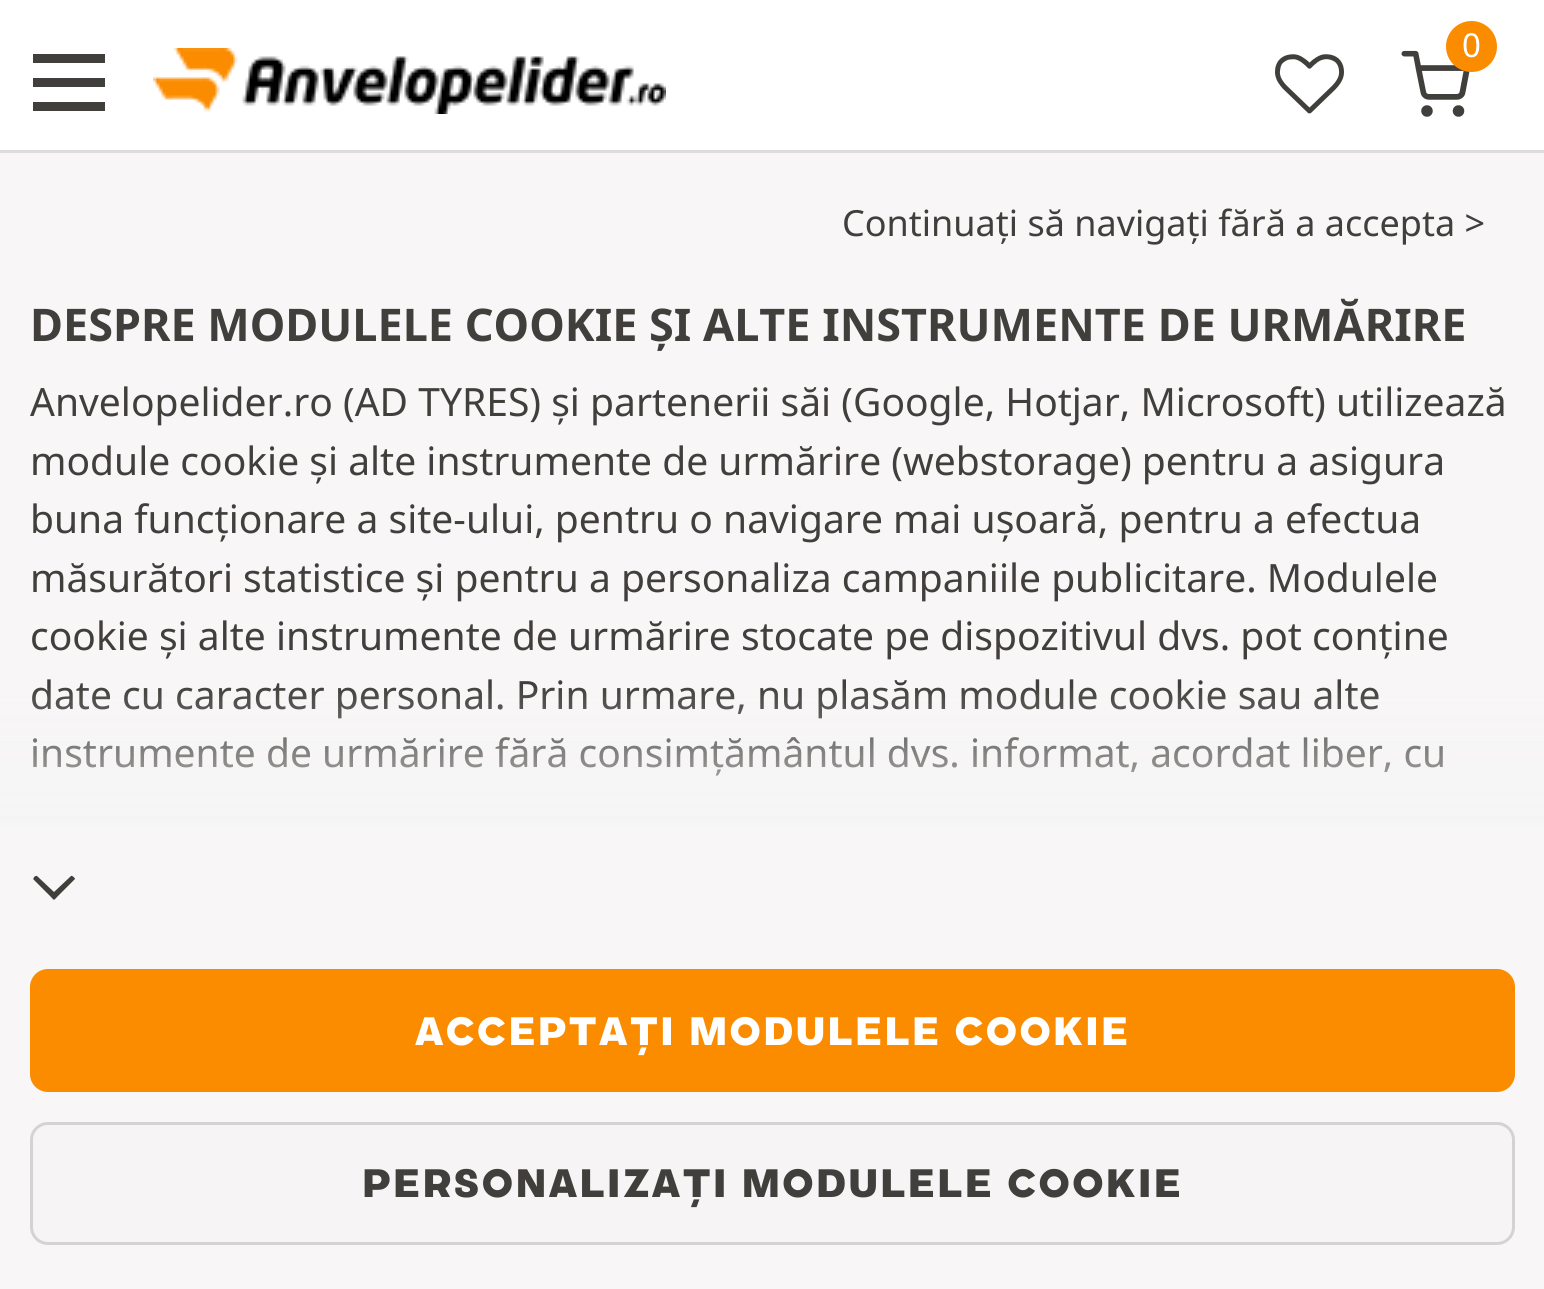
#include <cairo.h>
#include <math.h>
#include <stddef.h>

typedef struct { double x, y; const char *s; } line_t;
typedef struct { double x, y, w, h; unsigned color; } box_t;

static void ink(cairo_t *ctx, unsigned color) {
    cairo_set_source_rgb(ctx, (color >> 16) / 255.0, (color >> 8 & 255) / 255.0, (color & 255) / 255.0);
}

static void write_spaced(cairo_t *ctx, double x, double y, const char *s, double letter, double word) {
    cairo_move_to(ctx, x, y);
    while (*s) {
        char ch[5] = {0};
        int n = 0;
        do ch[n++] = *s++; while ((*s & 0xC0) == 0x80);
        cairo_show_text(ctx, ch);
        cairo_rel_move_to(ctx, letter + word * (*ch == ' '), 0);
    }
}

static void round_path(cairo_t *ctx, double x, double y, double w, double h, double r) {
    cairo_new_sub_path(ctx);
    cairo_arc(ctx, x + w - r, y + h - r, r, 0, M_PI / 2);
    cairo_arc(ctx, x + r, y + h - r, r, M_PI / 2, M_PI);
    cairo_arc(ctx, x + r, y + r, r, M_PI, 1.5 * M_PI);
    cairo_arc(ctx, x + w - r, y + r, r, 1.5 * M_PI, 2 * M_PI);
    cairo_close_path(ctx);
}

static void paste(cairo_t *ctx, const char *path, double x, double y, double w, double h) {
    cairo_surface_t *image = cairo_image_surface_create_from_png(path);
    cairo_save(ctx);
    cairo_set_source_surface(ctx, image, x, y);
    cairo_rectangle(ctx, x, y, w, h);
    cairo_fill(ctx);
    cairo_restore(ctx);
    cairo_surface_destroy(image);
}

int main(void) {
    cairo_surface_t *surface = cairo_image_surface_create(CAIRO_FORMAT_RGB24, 1544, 1289);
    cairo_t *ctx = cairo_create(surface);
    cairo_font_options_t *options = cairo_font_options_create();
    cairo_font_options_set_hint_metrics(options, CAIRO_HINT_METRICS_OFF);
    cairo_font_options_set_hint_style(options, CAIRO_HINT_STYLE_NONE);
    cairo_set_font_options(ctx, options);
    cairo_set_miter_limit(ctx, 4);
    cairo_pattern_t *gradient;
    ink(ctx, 0xFFFFFF);
    cairo_paint(ctx);
    paste(ctx, "media/1.png", 1401, 50, 69, 67);
    ink(ctx, 0xFB8C00);
    cairo_arc(ctx, 1471.5, 46.5, 25.5, 0, 2 * M_PI);
    cairo_fill(ctx);
    cairo_select_font_face(ctx, "Noto Sans", CAIRO_FONT_SLANT_NORMAL, CAIRO_FONT_WEIGHT_NORMAL);
    cairo_set_font_size(ctx, 33);
    ink(ctx, 0xFFFFFF);
    cairo_move_to(ctx, 1462, 57);
    cairo_show_text(ctx, "0");
    {
        static const box_t items[] = {
            {33, 54, 72, 9, 0x413F3C},
            {33, 78, 72, 9, 0x413F3C},
            {33, 102, 72, 9, 0x413F3C},
        };
        for (size_t i = 0; i < sizeof items / sizeof *items; i++) {
            ink(ctx, items[i].color);
            cairo_rectangle(ctx, items[i].x, items[i].y, items[i].w, items[i].h);
            cairo_fill(ctx);
        }
    }
    paste(ctx, "media/2.png", 153, 48, 513, 66);
    paste(ctx, "media/3.png", 1275, 54, 69, 60);
    ink(ctx, 0xF8F6F7);
    cairo_rectangle(ctx, 0, 153, 1544, 1136);
    cairo_fill(ctx);
    ink(ctx, 0xDDDDDD);
    cairo_rectangle(ctx, 0, 150, 1544, 3);
    cairo_fill(ctx);
    cairo_set_font_size(ctx, 36);
    ink(ctx, 0x413F3C);
    cairo_move_to(ctx, 842, 236);
    cairo_show_text(ctx, "Continuați să navigați fără a accepta >");
    cairo_select_font_face(ctx, "Noto Sans", CAIRO_FONT_SLANT_NORMAL, CAIRO_FONT_WEIGHT_BOLD);
    cairo_set_font_size(ctx, 45);
    cairo_move_to(ctx, 30, 341);
    cairo_show_text(ctx, "DESPRE MODULELE COOKIE ȘI ALTE INSTRUMENTE DE URMĂRIRE");
    cairo_select_font_face(ctx, "Noto Sans", CAIRO_FONT_SLANT_NORMAL, CAIRO_FONT_WEIGHT_NORMAL);
    cairo_set_font_size(ctx, 39);
    {
        static const line_t items[] = {
            {30, 416, "Anvelopelider.ro (AD TYRES) și partenerii săi (Google, Hotjar, Microsoft) utilizează"},
            {30, 475, "module cookie și alte instrumente de urmărire (webstorage) pentru a asigura"},
            {30, 533, "buna funcționare a site-ului, pentru o navigare mai ușoară, pentru a efectua"},
            {30, 592, "măsurători statistice și pentru a personaliza campaniile publicitare. Modulele"},
            {30, 650, "cookie și alte instrumente de urmărire stocate pe dispozitivul dvs. pot conține"},
            {30, 709, "date cu caracter personal. Prin urmare, nu plasăm module cookie sau alte"},
            {30, 767, "instrumente de urmărire fără consimțământul dvs. informat, acordat liber, cu"},
        };
        for (size_t i = 0; i < sizeof items / sizeof *items; i++) {
            cairo_move_to(ctx, items[i].x, items[i].y);
            cairo_show_text(ctx, items[i].s);
        }
    }
    gradient = cairo_pattern_create_linear(773, 684, 773, 834);
    cairo_pattern_add_color_stop_rgba(gradient, 0, 0.961, 0.961, 0.961, 0);
    cairo_pattern_add_color_stop_rgba(gradient, 1, 0.961, 0.961, 0.961, 0.8);
    cairo_set_source(ctx, gradient);
    cairo_pattern_destroy(gradient);
    cairo_rectangle(ctx, 0, 688, 1544, 139);
    cairo_fill(ctx);
    ink(ctx, 0x413F3C);
    cairo_new_path(ctx);
    cairo_move_to(ctx, 75, 879);
    cairo_line_to(ctx, 58, 896);
    cairo_curve_to(ctx, 53, 901, 55, 901, 50, 896);
    cairo_line_to(ctx, 34, 880);
    cairo_curve_to(ctx, 32, 879, 35, 875, 37, 876);
    cairo_line_to(ctx, 54, 892);
    cairo_line_to(ctx, 71, 876);
    cairo_curve_to(ctx, 72, 875, 75, 878, 75, 879);
    cairo_close_path(ctx);
    cairo_fill(ctx);
    ink(ctx, 0xFB8C00);
    round_path(ctx, 31.5, 970.5, 1482, 120, 16.5);
    cairo_fill_preserve(ctx);
    cairo_set_line_width(ctx, 3);
    cairo_stroke(ctx);
    cairo_select_font_face(ctx, "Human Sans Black", CAIRO_FONT_SLANT_NORMAL, CAIRO_FONT_WEIGHT_NORMAL);
    cairo_set_font_size(ctx, 42);
    ink(ctx, 0xFFFFFF);
    write_spaced(ctx, 415, 1045, "ACCEPTAȚI MODULELE COOKIE", 2.4, 0);
    ink(ctx, 0xF6F4F4);
    round_path(ctx, 31.5, 1123.5, 1482, 120, 16.5);
    cairo_fill_preserve(ctx);
    ink(ctx, 0xD3D3D3);
    cairo_stroke(ctx);
    ink(ctx, 0x413F3C);
    write_spaced(ctx, 362, 1197, "PERSONALIZAȚI MODULELE COOKIE", 2.4, 0);
    cairo_surface_write_to_png(surface, "image.png");
    cairo_font_options_destroy(options);
    cairo_destroy(ctx);
    cairo_surface_destroy(surface);
    return 0;
}
